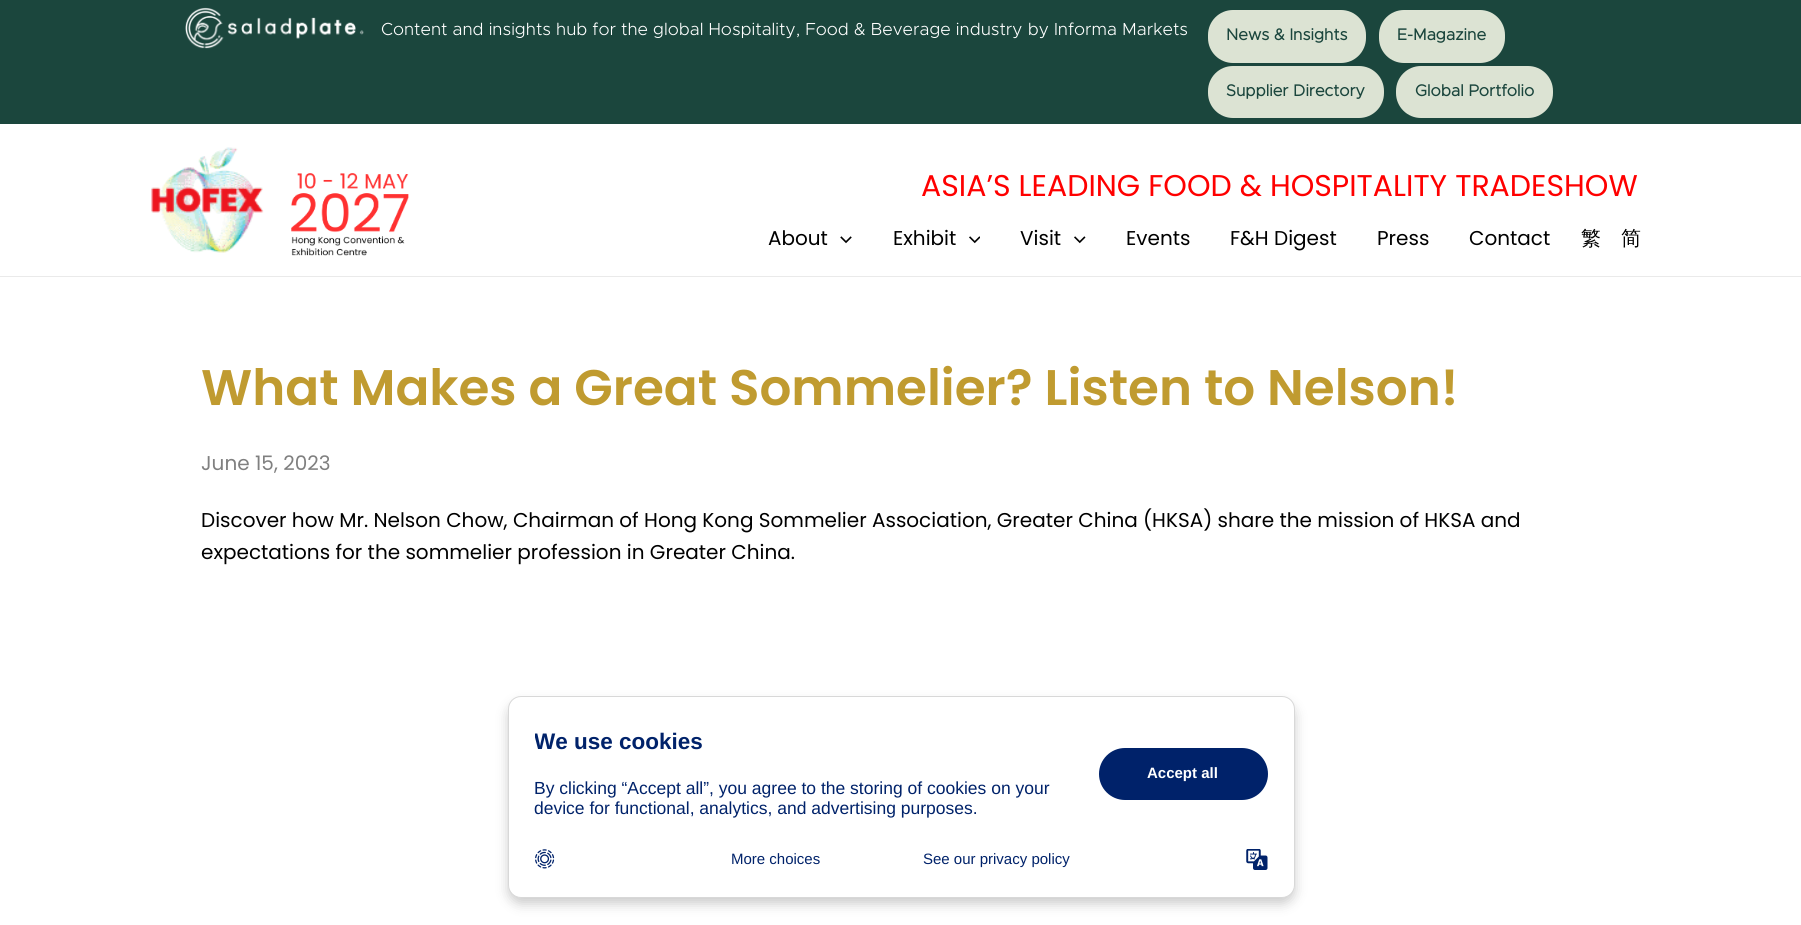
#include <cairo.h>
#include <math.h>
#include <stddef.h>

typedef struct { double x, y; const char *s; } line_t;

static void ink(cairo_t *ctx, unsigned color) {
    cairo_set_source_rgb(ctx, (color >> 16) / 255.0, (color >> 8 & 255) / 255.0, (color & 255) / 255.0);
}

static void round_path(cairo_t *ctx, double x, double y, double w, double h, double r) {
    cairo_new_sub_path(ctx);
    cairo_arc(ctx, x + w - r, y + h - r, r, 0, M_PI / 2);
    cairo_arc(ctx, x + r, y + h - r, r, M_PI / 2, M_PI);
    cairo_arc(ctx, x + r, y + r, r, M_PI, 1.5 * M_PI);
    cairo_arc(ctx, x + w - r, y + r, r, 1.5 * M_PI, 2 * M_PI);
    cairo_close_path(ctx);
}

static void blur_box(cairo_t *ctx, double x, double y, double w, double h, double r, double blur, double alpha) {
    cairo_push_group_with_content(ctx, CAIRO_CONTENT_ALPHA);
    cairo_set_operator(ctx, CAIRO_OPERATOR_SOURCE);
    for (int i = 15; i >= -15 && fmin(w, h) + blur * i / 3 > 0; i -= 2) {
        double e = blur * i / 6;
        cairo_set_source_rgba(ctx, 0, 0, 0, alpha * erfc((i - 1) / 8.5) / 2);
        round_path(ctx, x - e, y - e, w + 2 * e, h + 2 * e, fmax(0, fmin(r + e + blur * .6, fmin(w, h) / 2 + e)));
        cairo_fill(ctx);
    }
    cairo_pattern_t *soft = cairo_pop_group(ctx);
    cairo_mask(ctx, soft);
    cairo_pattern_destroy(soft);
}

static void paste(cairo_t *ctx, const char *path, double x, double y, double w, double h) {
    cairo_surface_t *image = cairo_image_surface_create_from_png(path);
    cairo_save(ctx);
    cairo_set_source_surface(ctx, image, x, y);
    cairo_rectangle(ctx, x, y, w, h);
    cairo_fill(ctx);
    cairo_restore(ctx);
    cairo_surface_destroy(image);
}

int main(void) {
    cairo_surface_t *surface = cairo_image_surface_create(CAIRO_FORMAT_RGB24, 1801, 925);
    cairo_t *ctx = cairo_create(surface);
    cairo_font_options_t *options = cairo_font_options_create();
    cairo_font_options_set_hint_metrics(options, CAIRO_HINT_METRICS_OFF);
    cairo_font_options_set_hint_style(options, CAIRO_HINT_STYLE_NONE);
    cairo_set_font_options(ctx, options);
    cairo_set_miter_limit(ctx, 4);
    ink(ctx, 0xFFFFFF);
    cairo_paint(ctx);
    ink(ctx, 0x1B463D);
    cairo_rectangle(ctx, 0, 0, 1801, 124);
    cairo_fill(ctx);
    paste(ctx, "media/1.png", 185, 7, 179, 42);
    cairo_select_font_face(ctx, "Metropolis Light", CAIRO_FONT_SLANT_NORMAL, CAIRO_FONT_WEIGHT_NORMAL);
    cairo_set_font_size(ctx, 17.5);
    ink(ctx, 0xFFFFFF);
    cairo_move_to(ctx, 381, 35);
    cairo_show_text(ctx, "Content and insights hub for the global Hospitality, Food & Beverage industry by Informa Markets");
    ink(ctx, 0xDCE3D3);
    round_path(ctx, 1208, 10, 158, 53, 25);
    cairo_fill(ctx);
    cairo_select_font_face(ctx, "Metropolis", CAIRO_FONT_SLANT_NORMAL, CAIRO_FONT_WEIGHT_BOLD);
    cairo_set_font_size(ctx, 16.25);
    ink(ctx, 0x1B463D);
    cairo_move_to(ctx, 1226, 40);
    cairo_show_text(ctx, "News & Insights");
    ink(ctx, 0xDCE3D3);
    round_path(ctx, 1379, 10, 126, 53, 25);
    cairo_fill(ctx);
    ink(ctx, 0x1B463D);
    cairo_move_to(ctx, 1397, 40);
    cairo_show_text(ctx, "E-Magazine");
    ink(ctx, 0xDCE3D3);
    round_path(ctx, 1208, 66, 176, 52, 25);
    cairo_fill(ctx);
    ink(ctx, 0x1B463D);
    cairo_move_to(ctx, 1226, 96);
    cairo_show_text(ctx, "Supplier Directory");
    ink(ctx, 0xDCE3D3);
    round_path(ctx, 1396, 66, 157, 52, 25);
    cairo_fill(ctx);
    ink(ctx, 0x1B463D);
    cairo_move_to(ctx, 1415, 96);
    cairo_show_text(ctx, "Global Portfolio");
    ink(ctx, 0xEAEAEA);
    cairo_rectangle(ctx, 0, 276, 1801, 1);
    cairo_fill(ctx);
    paste(ctx, "media/2.png", 151, 147, 113, 106);
    paste(ctx, "media/3.png", 291, 173, 118, 83);
    cairo_select_font_face(ctx, "Poppins", CAIRO_FONT_SLANT_NORMAL, CAIRO_FONT_WEIGHT_NORMAL);
    cairo_set_font_size(ctx, 30);
    ink(ctx, 0xFF0000);
    cairo_move_to(ctx, 921, 196);
    cairo_show_text(ctx, "ASIA’S LEADING FOOD & HOSPITALITY TRADESHOW");
    cairo_set_font_size(ctx, 20);
    ink(ctx, 0x000000);
    cairo_move_to(ctx, 768, 245);
    cairo_show_text(ctx, "About");
    paste(ctx, "media/4.png", 840, 236, 12, 8);
    cairo_move_to(ctx, 893, 245);
    cairo_show_text(ctx, "Exhibit");
    paste(ctx, "media/5.png", 969, 236, 11, 8);
    cairo_move_to(ctx, 1020, 245);
    cairo_show_text(ctx, "Visit");
    paste(ctx, "media/6.png", 1074, 236, 12, 8);
    {
        static const line_t items[] = {
            {1126, 245, "Events"},
            {1230, 245, "F&H Digest"},
            {1377, 245, "Press"},
            {1469, 245, "Contact"},
        };
        for (size_t i = 0; i < sizeof items / sizeof *items; i++) {
            cairo_move_to(ctx, items[i].x, items[i].y);
            cairo_show_text(ctx, items[i].s);
        }
    }
    cairo_select_font_face(ctx, "WenQuanYi Zen Hei Medium", CAIRO_FONT_SLANT_NORMAL, CAIRO_FONT_WEIGHT_NORMAL);
    cairo_move_to(ctx, 1581, 245);
    cairo_show_text(ctx, "繁");
    cairo_move_to(ctx, 1621, 245);
    cairo_show_text(ctx, "简");
    cairo_select_font_face(ctx, "Poppins SemiBold", CAIRO_FONT_SLANT_NORMAL, CAIRO_FONT_WEIGHT_NORMAL);
    cairo_set_font_size(ctx, 50);
    ink(ctx, 0xC09B30);
    cairo_move_to(ctx, 201, 405);
    cairo_show_text(ctx, "What Makes a Great Sommelier? Listen to Nelson!");
    cairo_select_font_face(ctx, "Poppins", CAIRO_FONT_SLANT_NORMAL, CAIRO_FONT_WEIGHT_NORMAL);
    cairo_set_font_size(ctx, 20);
    ink(ctx, 0x808080);
    cairo_move_to(ctx, 201, 470);
    cairo_show_text(ctx, "June 15, 2023");
    ink(ctx, 0x000000);
    cairo_move_to(ctx, 201, 527);
    cairo_show_text(ctx, "Discover how Mr. Nelson Chow, Chairman of Hong Kong Sommelier Association, Greater China (HKSA) share the mission of HKSA and");
    cairo_move_to(ctx, 201, 559);
    cairo_show_text(ctx, "expectations for the sommelier profession in Greater China.");
    ink(ctx, 0x000000);
    blur_box(ctx, 508, 703, 787, 201, 13, 6, 0.2);
    ink(ctx, 0xFFFFFF);
    round_path(ctx, 508.5, 696.5, 786, 201, 12.5);
    cairo_fill_preserve(ctx);
    ink(ctx, 0xD8D8D8);
    cairo_set_line_width(ctx, 1);
    cairo_stroke(ctx);
    cairo_save(ctx);
    cairo_rectangle(ctx, 535, 724, 733, 99);
    cairo_clip(ctx);
    cairo_select_font_face(ctx, "Liberation Sans", CAIRO_FONT_SLANT_NORMAL, CAIRO_FONT_WEIGHT_BOLD);
    cairo_set_font_size(ctx, 22.5);
    ink(ctx, 0x00226A);
    cairo_move_to(ctx, 534, 749);
    cairo_show_text(ctx, "We use cookies");
    cairo_restore(ctx);
    cairo_select_font_face(ctx, "Liberation Sans", CAIRO_FONT_SLANT_NORMAL, CAIRO_FONT_WEIGHT_NORMAL);
    cairo_set_font_size(ctx, 17.5);
    ink(ctx, 0x00226A);
    cairo_move_to(ctx, 534, 794);
    cairo_show_text(ctx, "By clicking “Accept all”, you agree to the storing of cookies on your");
    cairo_move_to(ctx, 534, 814);
    cairo_show_text(ctx, "device for functional, analytics, and advertising purposes.");
    round_path(ctx, 1099, 748, 169, 52, 26);
    cairo_fill(ctx);
    cairo_select_font_face(ctx, "Liberation Sans", CAIRO_FONT_SLANT_NORMAL, CAIRO_FONT_WEIGHT_BOLD);
    cairo_set_font_size(ctx, 15);
    ink(ctx, 0xFFFFFF);
    cairo_move_to(ctx, 1147, 778);
    cairo_show_text(ctx, "Accept all");
    paste(ctx, "media/7.png", 535, 849, 20, 20);
    cairo_select_font_face(ctx, "Liberation Sans", CAIRO_FONT_SLANT_NORMAL, CAIRO_FONT_WEIGHT_NORMAL);
    ink(ctx, 0x00226A);
    cairo_move_to(ctx, 731, 864);
    cairo_show_text(ctx, "More choices");
    cairo_move_to(ctx, 923, 864);
    cairo_show_text(ctx, "See our privacy policy");
    paste(ctx, "media/8.png", 1246, 849, 22, 21);
    cairo_surface_write_to_png(surface, "image.png");
    cairo_font_options_destroy(options);
    cairo_destroy(ctx);
    cairo_surface_destroy(surface);
    return 0;
}
